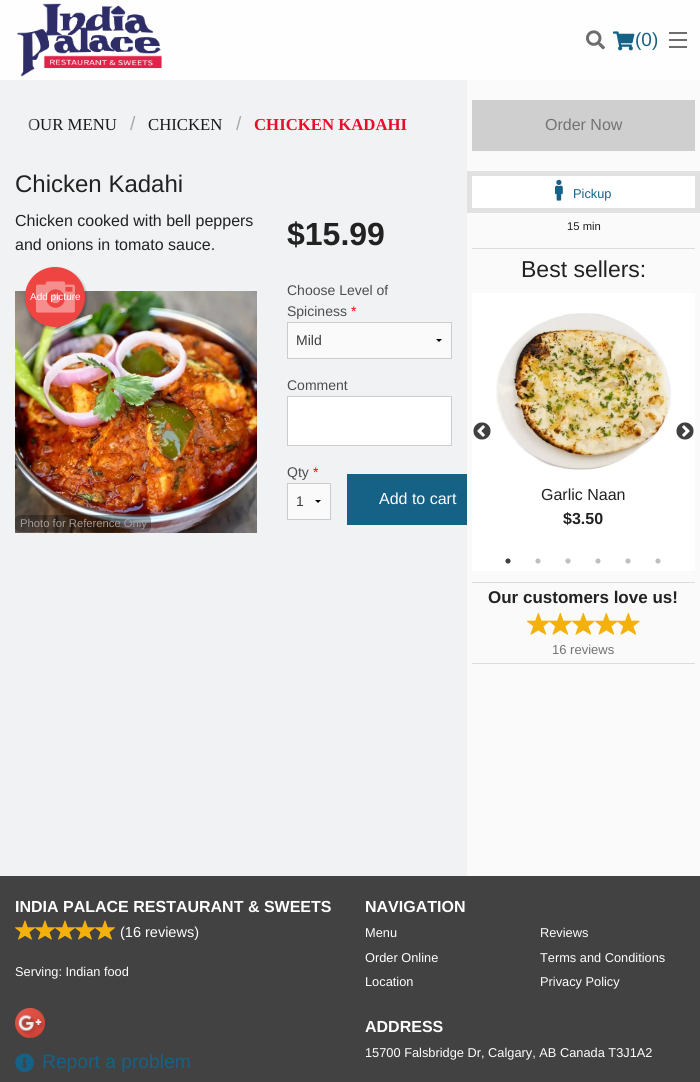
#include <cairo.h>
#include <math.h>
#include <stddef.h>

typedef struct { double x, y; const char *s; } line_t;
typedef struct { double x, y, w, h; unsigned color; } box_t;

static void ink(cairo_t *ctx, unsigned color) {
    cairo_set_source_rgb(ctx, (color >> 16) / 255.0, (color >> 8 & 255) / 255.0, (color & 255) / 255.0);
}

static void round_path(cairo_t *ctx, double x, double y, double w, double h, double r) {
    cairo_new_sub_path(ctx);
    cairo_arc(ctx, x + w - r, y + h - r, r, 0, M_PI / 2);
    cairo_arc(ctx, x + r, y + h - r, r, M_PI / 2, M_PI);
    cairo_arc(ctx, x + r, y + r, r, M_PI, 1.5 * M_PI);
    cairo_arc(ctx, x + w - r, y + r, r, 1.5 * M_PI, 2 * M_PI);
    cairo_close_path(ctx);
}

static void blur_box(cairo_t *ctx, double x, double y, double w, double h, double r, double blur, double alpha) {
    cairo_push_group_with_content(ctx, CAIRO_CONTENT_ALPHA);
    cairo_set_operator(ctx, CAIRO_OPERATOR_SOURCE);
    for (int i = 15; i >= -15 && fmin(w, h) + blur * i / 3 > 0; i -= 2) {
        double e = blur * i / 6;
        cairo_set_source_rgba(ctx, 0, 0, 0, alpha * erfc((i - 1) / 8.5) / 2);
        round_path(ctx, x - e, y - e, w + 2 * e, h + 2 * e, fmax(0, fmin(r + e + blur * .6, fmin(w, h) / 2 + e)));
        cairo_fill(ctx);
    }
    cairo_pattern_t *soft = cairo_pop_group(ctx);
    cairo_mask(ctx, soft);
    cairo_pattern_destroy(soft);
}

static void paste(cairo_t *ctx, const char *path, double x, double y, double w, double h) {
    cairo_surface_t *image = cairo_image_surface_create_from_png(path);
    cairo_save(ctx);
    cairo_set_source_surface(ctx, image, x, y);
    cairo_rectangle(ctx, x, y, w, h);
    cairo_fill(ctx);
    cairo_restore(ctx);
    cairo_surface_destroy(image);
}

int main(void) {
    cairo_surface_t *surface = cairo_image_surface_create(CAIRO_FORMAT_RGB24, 700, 1082);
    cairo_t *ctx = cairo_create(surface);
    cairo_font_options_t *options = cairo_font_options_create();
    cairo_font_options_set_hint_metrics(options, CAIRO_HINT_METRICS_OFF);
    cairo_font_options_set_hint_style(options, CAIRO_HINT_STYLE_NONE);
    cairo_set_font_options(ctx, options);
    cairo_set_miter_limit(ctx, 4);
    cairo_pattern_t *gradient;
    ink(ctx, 0xF1F2F3);
    cairo_paint(ctx);
    ink(ctx, 0xFEFEFE);
    cairo_rectangle(ctx, 0, 0, 700, 80);
    cairo_fill(ctx);
    paste(ctx, "media/1.png", 17, 3, 145, 74);
    paste(ctx, "media/2.png", 586, 30, 19, 20);
    paste(ctx, "media/3.png", 613, 31, 22, 20);
    cairo_select_font_face(ctx, "Liberation Sans", CAIRO_FONT_SLANT_NORMAL, CAIRO_FONT_WEIGHT_NORMAL);
    cairo_set_font_size(ctx, 19);
    ink(ctx, 0x166186);
    cairo_move_to(ctx, 635, 46);
    cairo_show_text(ctx, "(0)");
    {
        static const box_t items[] = {
            {669, 46, 18, 2, 0x6D6D6D},
            {669, 39, 18, 2, 0x6D6D6D},
            {669, 32, 18, 2, 0x6D6D6D},
        };
        for (size_t i = 0; i < sizeof items / sizeof *items; i++) {
            ink(ctx, items[i].color);
            cairo_rectangle(ctx, items[i].x, items[i].y, items[i].w, items[i].h);
            cairo_fill(ctx);
        }
    }
    cairo_select_font_face(ctx, "Liberation Serif", CAIRO_FONT_SLANT_NORMAL, CAIRO_FONT_WEIGHT_NORMAL);
    cairo_set_font_size(ctx, 16.75);
    ink(ctx, 0x1A1A1A);
    cairo_move_to(ctx, 28, 130);
    cairo_show_text(ctx, "OUR MENU");
    cairo_select_font_face(ctx, "Liberation Sans", CAIRO_FONT_SLANT_NORMAL, CAIRO_FONT_WEIGHT_NORMAL);
    cairo_set_font_size(ctx, 19.25);
    ink(ctx, 0xAAAAAA);
    cairo_move_to(ctx, 130, 130);
    cairo_show_text(ctx, "/");
    cairo_select_font_face(ctx, "Liberation Serif", CAIRO_FONT_SLANT_NORMAL, CAIRO_FONT_WEIGHT_NORMAL);
    cairo_set_font_size(ctx, 16.75);
    ink(ctx, 0x1A1A1A);
    cairo_move_to(ctx, 148, 130);
    cairo_show_text(ctx, "CHICKEN");
    cairo_select_font_face(ctx, "Liberation Sans", CAIRO_FONT_SLANT_NORMAL, CAIRO_FONT_WEIGHT_NORMAL);
    cairo_set_font_size(ctx, 19.25);
    ink(ctx, 0xAAAAAA);
    cairo_move_to(ctx, 236, 130);
    cairo_show_text(ctx, "/");
    cairo_select_font_face(ctx, "Liberation Serif", CAIRO_FONT_SLANT_NORMAL, CAIRO_FONT_WEIGHT_BOLD);
    cairo_set_font_size(ctx, 16.75);
    ink(ctx, 0xEB0C2B);
    cairo_move_to(ctx, 254, 130);
    cairo_show_text(ctx, "CHICKEN KADAHI");
    gradient = cairo_pattern_create_linear(35, 120, 0, 120);
    cairo_pattern_add_color_stop_rgba(gradient, 0, 0.945, 0.949, 0.953, 0);
    cairo_pattern_add_color_stop_rgba(gradient, 0.43, 0.945, 0.949, 0.953, 1);
    cairo_pattern_add_color_stop_rgba(gradient, 1, 0.945, 0.949, 0.953, 1);
    cairo_set_source(ctx, gradient);
    cairo_pattern_destroy(gradient);
    cairo_rectangle(ctx, 28, 119, 7, 12);
    cairo_fill(ctx);
    cairo_select_font_face(ctx, "Liberation Sans", CAIRO_FONT_SLANT_NORMAL, CAIRO_FONT_WEIGHT_NORMAL);
    cairo_set_font_size(ctx, 24);
    ink(ctx, 0x222222);
    cairo_move_to(ctx, 15, 192);
    cairo_show_text(ctx, "Chicken Kadahi");
    cairo_set_font_size(ctx, 16);
    cairo_move_to(ctx, 15, 226);
    cairo_show_text(ctx, "Chicken cooked with bell peppers");
    cairo_move_to(ctx, 15, 250);
    cairo_show_text(ctx, "and onions in tomato sauce.");
    paste(ctx, "media/4.png", 15, 291, 242, 242);
    ink(ctx, 0x000000);
    blur_box(ctx, 25, 268, 62, 62, 31, 1, 0.2);
    ink(ctx, 0xEE4542);
    cairo_arc(ctx, 55, 297, 30, 0, 2 * M_PI);
    cairo_fill(ctx);
    paste(ctx, "media/5.png", 36, 281, 39, 32);
    cairo_set_font_size(ctx, 10);
    ink(ctx, 0xFFFFFF);
    cairo_move_to(ctx, 30, 300);
    cairo_show_text(ctx, "Add picture");
    cairo_set_source_rgba(ctx, 0, 0, 0, 0.3);
    round_path(ctx, 15, 515, 136, 17, 5);
    cairo_fill(ctx);
    cairo_set_font_size(ctx, 11.25);
    ink(ctx, 0xA29B97);
    cairo_move_to(ctx, 20, 527);
    cairo_show_text(ctx, "Photo for Reference Only");
    cairo_select_font_face(ctx, "Liberation Sans", CAIRO_FONT_SLANT_NORMAL, CAIRO_FONT_WEIGHT_BOLD);
    cairo_set_font_size(ctx, 32);
    ink(ctx, 0x222222);
    cairo_move_to(ctx, 287, 245);
    cairo_show_text(ctx, "$15.99");
    cairo_select_font_face(ctx, "Liberation Sans", CAIRO_FONT_SLANT_NORMAL, CAIRO_FONT_WEIGHT_NORMAL);
    cairo_set_font_size(ctx, 14);
    ink(ctx, 0x4D4D4D);
    cairo_move_to(ctx, 287, 295);
    cairo_show_text(ctx, "Choose Level of");
    cairo_move_to(ctx, 287, 316);
    cairo_show_text(ctx, "Spiciness");
    ink(ctx, 0xFF0000);
    cairo_move_to(ctx, 351, 316);
    cairo_show_text(ctx, "*");
    ink(ctx, 0xFAFAFA);
    cairo_rectangle(ctx, 288, 323, 163, 35);
    cairo_fill(ctx);
    ink(ctx, 0x000000);
    cairo_new_path(ctx);
    cairo_move_to(ctx, 442, 339);
    cairo_line_to(ctx, 439, 342);
    cairo_line_to(ctx, 436, 339);
    cairo_close_path(ctx);
    cairo_fill(ctx);
    cairo_rectangle(ctx, 287.5, 322.5, 164, 36);
    ink(ctx, 0xCCCCCC);
    cairo_set_line_width(ctx, 1);
    cairo_stroke(ctx);
    ink(ctx, 0x3F3F3F);
    cairo_move_to(ctx, 296, 345);
    cairo_show_text(ctx, "Mild");
    ink(ctx, 0x4D4D4D);
    cairo_move_to(ctx, 287, 390);
    cairo_show_text(ctx, "Comment");
    ink(ctx, 0xFFFFFF);
    cairo_rectangle(ctx, 287.5, 396.5, 164, 49);
    cairo_fill_preserve(ctx);
    ink(ctx, 0xCCCCCC);
    cairo_stroke(ctx);
    ink(ctx, 0x4D4D4D);
    cairo_move_to(ctx, 287, 477);
    cairo_show_text(ctx, "Qty");
    ink(ctx, 0xFF0000);
    cairo_move_to(ctx, 313, 477);
    cairo_show_text(ctx, "*");
    ink(ctx, 0xFAFAFA);
    cairo_rectangle(ctx, 288, 484, 42, 35);
    cairo_fill(ctx);
    ink(ctx, 0x000000);
    cairo_new_path(ctx);
    cairo_move_to(ctx, 321, 500);
    cairo_line_to(ctx, 318, 503);
    cairo_line_to(ctx, 315, 500);
    cairo_close_path(ctx);
    cairo_fill(ctx);
    cairo_rectangle(ctx, 287.5, 483.5, 43, 36);
    ink(ctx, 0xCCCCCC);
    cairo_stroke(ctx);
    ink(ctx, 0x3F3F3F);
    cairo_move_to(ctx, 296, 506);
    cairo_show_text(ctx, "1");
    ink(ctx, 0x166186);
    cairo_rectangle(ctx, 347, 474, 120, 51);
    cairo_fill(ctx);
    cairo_set_font_size(ctx, 16);
    ink(ctx, 0xFFFFFF);
    cairo_move_to(ctx, 379, 504);
    cairo_show_text(ctx, "Add to cart");
    ink(ctx, 0xFAFAFA);
    cairo_rectangle(ctx, 467, 80, 233, 796);
    cairo_fill(ctx);
    ink(ctx, 0xCFCFCF);
    cairo_rectangle(ctx, 472, 100, 223, 51);
    cairo_fill(ctx);
    ink(ctx, 0x737373);
    cairo_move_to(ctx, 545, 130);
    cairo_show_text(ctx, "Order Now");
    ink(ctx, 0xE1E1E1);
    cairo_rectangle(ctx, 467, 171, 233, 42);
    cairo_fill(ctx);
    ink(ctx, 0xFFFFFF);
    cairo_rectangle(ctx, 472, 176, 223, 32);
    cairo_fill(ctx);
    paste(ctx, "media/6.png", 555, 179, 8, 22);
    cairo_set_font_size(ctx, 12.8);
    ink(ctx, 0x166186);
    cairo_move_to(ctx, 573, 198);
    cairo_show_text(ctx, "Pickup");
    cairo_set_font_size(ctx, 11.25);
    ink(ctx, 0x222222);
    cairo_move_to(ctx, 567, 230);
    cairo_show_text(ctx, "15 min");
    ink(ctx, 0xDDDDDD);
    cairo_rectangle(ctx, 472, 248, 223, 1);
    cairo_fill(ctx);
    cairo_set_font_size(ctx, 23);
    ink(ctx, 0x222222);
    cairo_move_to(ctx, 521, 277);
    cairo_show_text(ctx, "Best sellers:");
    ink(ctx, 0xFFFFFF);
    cairo_rectangle(ctx, 472, 293, 223, 278);
    cairo_fill(ctx);
    paste(ctx, "media/7.png", 473, 422, 18, 18);
    paste(ctx, "media/8.png", 676, 422, 18, 18);
    paste(ctx, "media/9.png", 496, 313, 175, 157);
    cairo_set_font_size(ctx, 16);
    ink(ctx, 0x222222);
    cairo_move_to(ctx, 541, 500);
    cairo_show_text(ctx, "Garlic Naan");
    cairo_select_font_face(ctx, "Liberation Sans", CAIRO_FONT_SLANT_NORMAL, CAIRO_FONT_WEIGHT_BOLD);
    cairo_move_to(ctx, 563, 524);
    cairo_show_text(ctx, "$3.50");
    paste(ctx, "media/10.png", 505, 558, 6, 6);
    paste(ctx, "media/11.png", 535, 558, 6, 6);
    paste(ctx, "media/11.png", 565, 558, 6, 6);
    paste(ctx, "media/11.png", 595, 558, 6, 6);
    paste(ctx, "media/11.png", 625, 558, 6, 6);
    paste(ctx, "media/11.png", 655, 558, 6, 6);
    ink(ctx, 0xDDDDDD);
    cairo_rectangle(ctx, 472, 582, 223, 1);
    cairo_fill(ctx);
    cairo_set_font_size(ctx, 17);
    ink(ctx, 0x222222);
    cairo_move_to(ctx, 488, 603);
    cairo_show_text(ctx, "Our customers love us!");
    paste(ctx, "media/12.png", 527, 612, 23, 23);
    paste(ctx, "media/13.png", 549, 612, 23, 23);
    paste(ctx, "media/12.png", 572, 612, 23, 23);
    paste(ctx, "media/12.png", 595, 612, 23, 23);
    paste(ctx, "media/13.png", 617, 612, 23, 23);
    cairo_select_font_face(ctx, "Liberation Sans", CAIRO_FONT_SLANT_NORMAL, CAIRO_FONT_WEIGHT_NORMAL);
    cairo_set_font_size(ctx, 13);
    ink(ctx, 0x737373);
    cairo_move_to(ctx, 552, 654);
    cairo_show_text(ctx, "16 reviews");
    ink(ctx, 0xDDDDDD);
    cairo_rectangle(ctx, 472, 663, 223, 1);
    cairo_fill(ctx);
    ink(ctx, 0x424242);
    cairo_rectangle(ctx, 0, 876, 700, 206);
    cairo_fill(ctx);
    cairo_select_font_face(ctx, "Liberation Sans", CAIRO_FONT_SLANT_NORMAL, CAIRO_FONT_WEIGHT_BOLD);
    cairo_set_font_size(ctx, 16);
    ink(ctx, 0xFFFFFF);
    cairo_move_to(ctx, 15, 912);
    cairo_show_text(ctx, "INDIA PALACE RESTAURANT & SWEETS");
    paste(ctx, "media/14.png", 15, 920, 20, 20);
    paste(ctx, "media/14.png", 35, 920, 20, 20);
    paste(ctx, "media/14.png", 55, 920, 20, 20);
    paste(ctx, "media/14.png", 75, 920, 20, 20);
    paste(ctx, "media/14.png", 95, 920, 20, 20);
    cairo_select_font_face(ctx, "Liberation Sans", CAIRO_FONT_SLANT_NORMAL, CAIRO_FONT_WEIGHT_NORMAL);
    cairo_set_font_size(ctx, 14.5);
    cairo_move_to(ctx, 120, 937);
    cairo_show_text(ctx, "(16 reviews)");
    cairo_set_font_size(ctx, 12.8);
    cairo_move_to(ctx, 15, 976);
    cairo_show_text(ctx, "Serving: Indian food");
    paste(ctx, "media/15.png", 15, 1008, 30, 30);
    paste(ctx, "media/16.png", 15, 1053, 19, 20);
    cairo_set_font_size(ctx, 19.25);
    ink(ctx, 0x166186);
    cairo_move_to(ctx, 42, 1068);
    cairo_show_text(ctx, "Report a problem");
    cairo_select_font_face(ctx, "Liberation Sans", CAIRO_FONT_SLANT_NORMAL, CAIRO_FONT_WEIGHT_BOLD);
    cairo_set_font_size(ctx, 16);
    ink(ctx, 0xFFFFFF);
    cairo_move_to(ctx, 365, 912);
    cairo_show_text(ctx, "NAVIGATION");
    cairo_select_font_face(ctx, "Liberation Sans", CAIRO_FONT_SLANT_NORMAL, CAIRO_FONT_WEIGHT_NORMAL);
    cairo_set_font_size(ctx, 12.8);
    {
        static const line_t items[] = {
            {365, 937, "Menu"},
            {365, 962, "Order Online"},
            {365, 986, "Location"},
            {540, 937, "Reviews"},
            {540, 962, "Terms and Conditions"},
            {540, 986, "Privacy Policy"},
        };
        for (size_t i = 0; i < sizeof items / sizeof *items; i++) {
            cairo_move_to(ctx, items[i].x, items[i].y);
            cairo_show_text(ctx, items[i].s);
        }
    }
    cairo_select_font_face(ctx, "Liberation Sans", CAIRO_FONT_SLANT_NORMAL, CAIRO_FONT_WEIGHT_BOLD);
    cairo_set_font_size(ctx, 16);
    cairo_move_to(ctx, 365, 1032);
    cairo_show_text(ctx, "ADDRESS");
    cairo_select_font_face(ctx, "Liberation Sans", CAIRO_FONT_SLANT_NORMAL, CAIRO_FONT_WEIGHT_NORMAL);
    cairo_set_font_size(ctx, 12.8);
    cairo_move_to(ctx, 365, 1057);
    cairo_show_text(ctx, "15700 Falsbridge Dr, Calgary, AB Canada T3J1A2");
    cairo_surface_write_to_png(surface, "image.png");
    cairo_font_options_destroy(options);
    cairo_destroy(ctx);
    cairo_surface_destroy(surface);
    return 0;
}
